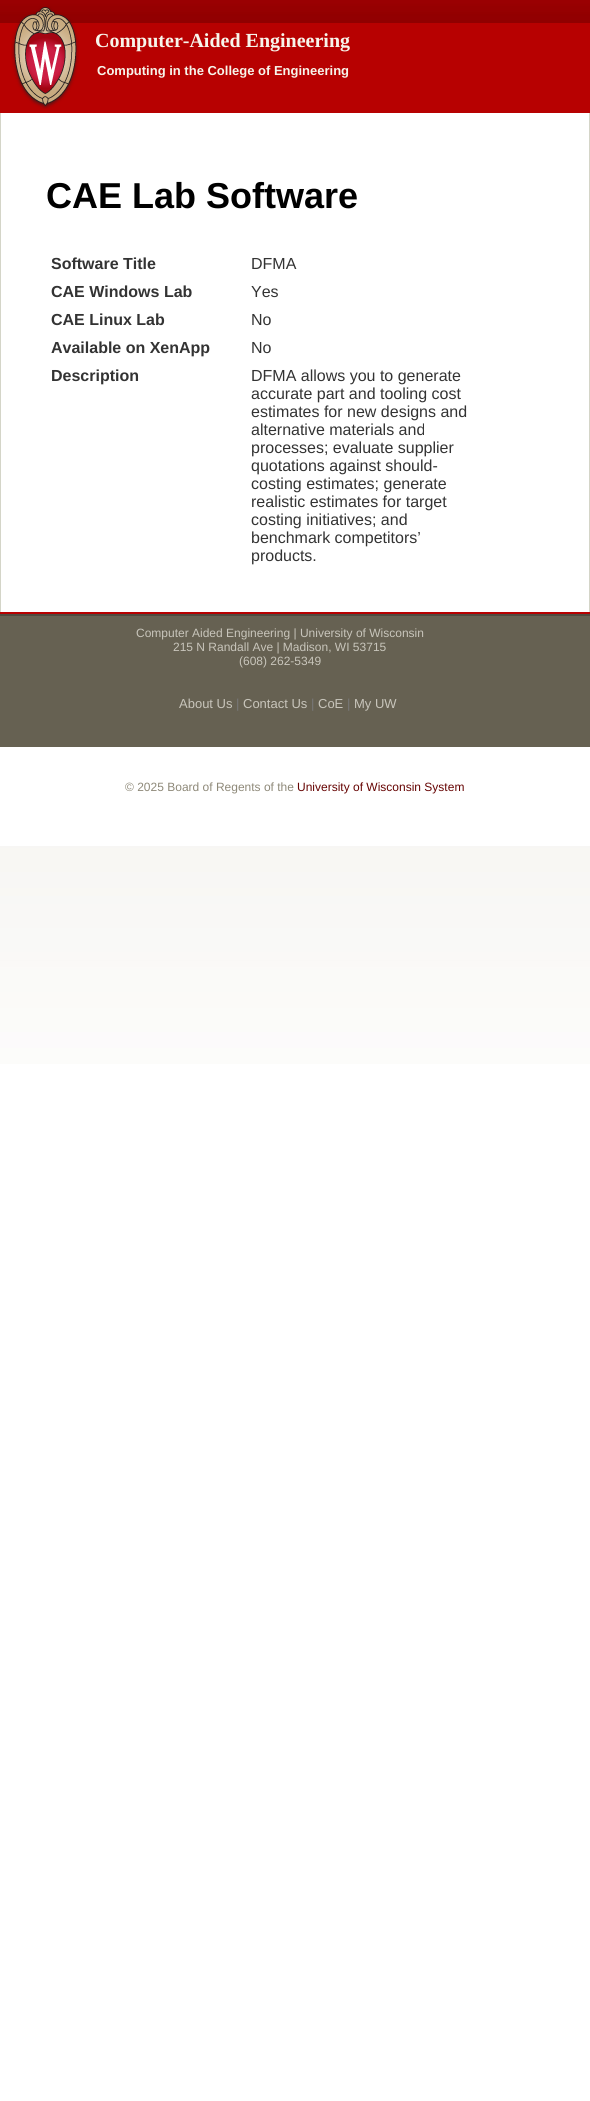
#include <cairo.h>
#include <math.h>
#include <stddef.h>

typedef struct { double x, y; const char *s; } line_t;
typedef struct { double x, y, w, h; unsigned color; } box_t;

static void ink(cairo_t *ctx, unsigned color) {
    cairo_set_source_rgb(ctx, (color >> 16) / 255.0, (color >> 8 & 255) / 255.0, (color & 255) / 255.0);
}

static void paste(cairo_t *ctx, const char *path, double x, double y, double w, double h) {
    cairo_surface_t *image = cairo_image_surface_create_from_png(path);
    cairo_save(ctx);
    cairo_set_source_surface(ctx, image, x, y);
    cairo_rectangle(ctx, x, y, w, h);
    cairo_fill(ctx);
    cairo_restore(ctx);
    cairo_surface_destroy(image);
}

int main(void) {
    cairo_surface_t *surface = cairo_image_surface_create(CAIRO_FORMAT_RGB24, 590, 2101);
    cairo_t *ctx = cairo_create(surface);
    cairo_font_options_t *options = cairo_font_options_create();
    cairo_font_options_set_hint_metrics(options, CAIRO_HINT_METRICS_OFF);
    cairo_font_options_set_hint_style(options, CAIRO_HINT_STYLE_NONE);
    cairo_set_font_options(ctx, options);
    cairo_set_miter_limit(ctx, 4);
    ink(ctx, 0xFFFFFF);
    cairo_paint(ctx);
    paste(ctx, "media/1.png", 0, 0, 590, 1064);
    ink(ctx, 0xFFFFFF);
    cairo_rectangle(ctx, 0, 113, 590, 733);
    cairo_fill(ctx);
    ink(ctx, 0xB70101);
    cairo_rectangle(ctx, 0, 23, 590, 90);
    cairo_fill(ctx);
    paste(ctx, "media/2.png", 11, 6, 68, 103);
    cairo_select_font_face(ctx, "Liberation Serif", CAIRO_FONT_SLANT_NORMAL, CAIRO_FONT_WEIGHT_BOLD);
    cairo_set_font_size(ctx, 20);
    ink(ctx, 0xF7F5EB);
    cairo_move_to(ctx, 95, 47);
    cairo_show_text(ctx, "Computer-Aided Engineering");
    cairo_select_font_face(ctx, "Liberation Sans", CAIRO_FONT_SLANT_NORMAL, CAIRO_FONT_WEIGHT_BOLD);
    cairo_set_font_size(ctx, 13);
    cairo_move_to(ctx, 97, 75);
    cairo_show_text(ctx, "Computing in the College of Engineering");
    ink(ctx, 0xD4D5C8);
    cairo_rectangle(ctx, 589, 113, 1, 499);
    cairo_fill(ctx);
    cairo_rectangle(ctx, 0, 113, 1, 499);
    cairo_fill(ctx);
    cairo_set_font_size(ctx, 36);
    ink(ctx, 0x000000);
    cairo_move_to(ctx, 46, 208);
    cairo_show_text(ctx, "CAE Lab Software");
    cairo_set_font_size(ctx, 16);
    ink(ctx, 0x333333);
    cairo_move_to(ctx, 51, 269);
    cairo_show_text(ctx, "Software Title");
    cairo_select_font_face(ctx, "Liberation Sans", CAIRO_FONT_SLANT_NORMAL, CAIRO_FONT_WEIGHT_NORMAL);
    cairo_move_to(ctx, 251, 269);
    cairo_show_text(ctx, "DFMA");
    cairo_select_font_face(ctx, "Liberation Sans", CAIRO_FONT_SLANT_NORMAL, CAIRO_FONT_WEIGHT_BOLD);
    cairo_move_to(ctx, 51, 297);
    cairo_show_text(ctx, "CAE Windows Lab");
    cairo_select_font_face(ctx, "Liberation Sans", CAIRO_FONT_SLANT_NORMAL, CAIRO_FONT_WEIGHT_NORMAL);
    cairo_move_to(ctx, 251, 297);
    cairo_show_text(ctx, "Yes");
    cairo_select_font_face(ctx, "Liberation Sans", CAIRO_FONT_SLANT_NORMAL, CAIRO_FONT_WEIGHT_BOLD);
    cairo_move_to(ctx, 51, 325);
    cairo_show_text(ctx, "CAE Linux Lab");
    cairo_select_font_face(ctx, "Liberation Sans", CAIRO_FONT_SLANT_NORMAL, CAIRO_FONT_WEIGHT_NORMAL);
    cairo_move_to(ctx, 251, 325);
    cairo_show_text(ctx, "No");
    cairo_select_font_face(ctx, "Liberation Sans", CAIRO_FONT_SLANT_NORMAL, CAIRO_FONT_WEIGHT_BOLD);
    cairo_move_to(ctx, 51, 353);
    cairo_show_text(ctx, "Available on XenApp");
    cairo_select_font_face(ctx, "Liberation Sans", CAIRO_FONT_SLANT_NORMAL, CAIRO_FONT_WEIGHT_NORMAL);
    cairo_move_to(ctx, 251, 353);
    cairo_show_text(ctx, "No");
    cairo_select_font_face(ctx, "Liberation Sans", CAIRO_FONT_SLANT_NORMAL, CAIRO_FONT_WEIGHT_BOLD);
    cairo_move_to(ctx, 51, 381);
    cairo_show_text(ctx, "Description");
    cairo_select_font_face(ctx, "Liberation Sans", CAIRO_FONT_SLANT_NORMAL, CAIRO_FONT_WEIGHT_NORMAL);
    {
        static const line_t items[] = {
            {251, 381, "DFMA allows you to generate"},
            {251, 399, "accurate part and tooling cost"},
            {251, 417, "estimates for new designs and"},
            {251, 435, "alternative materials and"},
            {251, 453, "processes; evaluate supplier"},
            {251, 471, "quotations against should-"},
            {251, 489, "costing estimates; generate"},
            {251, 507, "realistic estimates for target"},
            {251, 525, "costing initiatives; and"},
            {251, 543, "benchmark competitors’"},
            {251, 561, "products."},
        };
        for (size_t i = 0; i < sizeof items / sizeof *items; i++) {
            cairo_move_to(ctx, items[i].x, items[i].y);
            cairo_show_text(ctx, items[i].s);
        }
    }
    {
        static const box_t items[] = {
            {0, 612, 590, 2, 0xB70101},
            {0, 614, 590, 2, 0x4E4A3F},
            {0, 616, 590, 131, 0x666152},
        };
        for (size_t i = 0; i < sizeof items / sizeof *items; i++) {
            ink(ctx, items[i].color);
            cairo_rectangle(ctx, items[i].x, items[i].y, items[i].w, items[i].h);
            cairo_fill(ctx);
        }
    }
    cairo_set_font_size(ctx, 12);
    ink(ctx, 0xC8C5BB);
    {
        static const line_t items[] = {
            {136, 637, "Computer Aided Engineering | University of Wisconsin"},
            {173, 651, "215 N Randall Ave | Madison, WI 53715"},
            {239, 665, "(608) 262-5349"},
        };
        for (size_t i = 0; i < sizeof items / sizeof *items; i++) {
            cairo_move_to(ctx, items[i].x, items[i].y);
            cairo_show_text(ctx, items[i].s);
        }
    }
    cairo_set_font_size(ctx, 13);
    cairo_move_to(ctx, 179, 708);
    cairo_show_text(ctx, "About Us");
    ink(ctx, 0x777777);
    cairo_move_to(ctx, 236, 708);
    cairo_show_text(ctx, "|");
    ink(ctx, 0xC8C5BB);
    cairo_move_to(ctx, 243, 708);
    cairo_show_text(ctx, "Contact Us");
    ink(ctx, 0x777777);
    cairo_move_to(ctx, 311, 708);
    cairo_show_text(ctx, "|");
    ink(ctx, 0xC8C5BB);
    cairo_move_to(ctx, 318, 708);
    cairo_show_text(ctx, "CoE");
    ink(ctx, 0x777777);
    cairo_move_to(ctx, 347, 708);
    cairo_show_text(ctx, "|");
    ink(ctx, 0xC8C5BB);
    cairo_move_to(ctx, 354, 708);
    cairo_show_text(ctx, "My UW");
    cairo_set_font_size(ctx, 12);
    ink(ctx, 0x8E8979);
    cairo_move_to(ctx, 125, 791);
    cairo_show_text(ctx, "© 2025 Board of Regents of the");
    ink(ctx, 0x660403);
    cairo_move_to(ctx, 297, 791);
    cairo_show_text(ctx, "University of Wisconsin System");
    cairo_surface_write_to_png(surface, "image.png");
    cairo_font_options_destroy(options);
    cairo_destroy(ctx);
    cairo_surface_destroy(surface);
    return 0;
}
